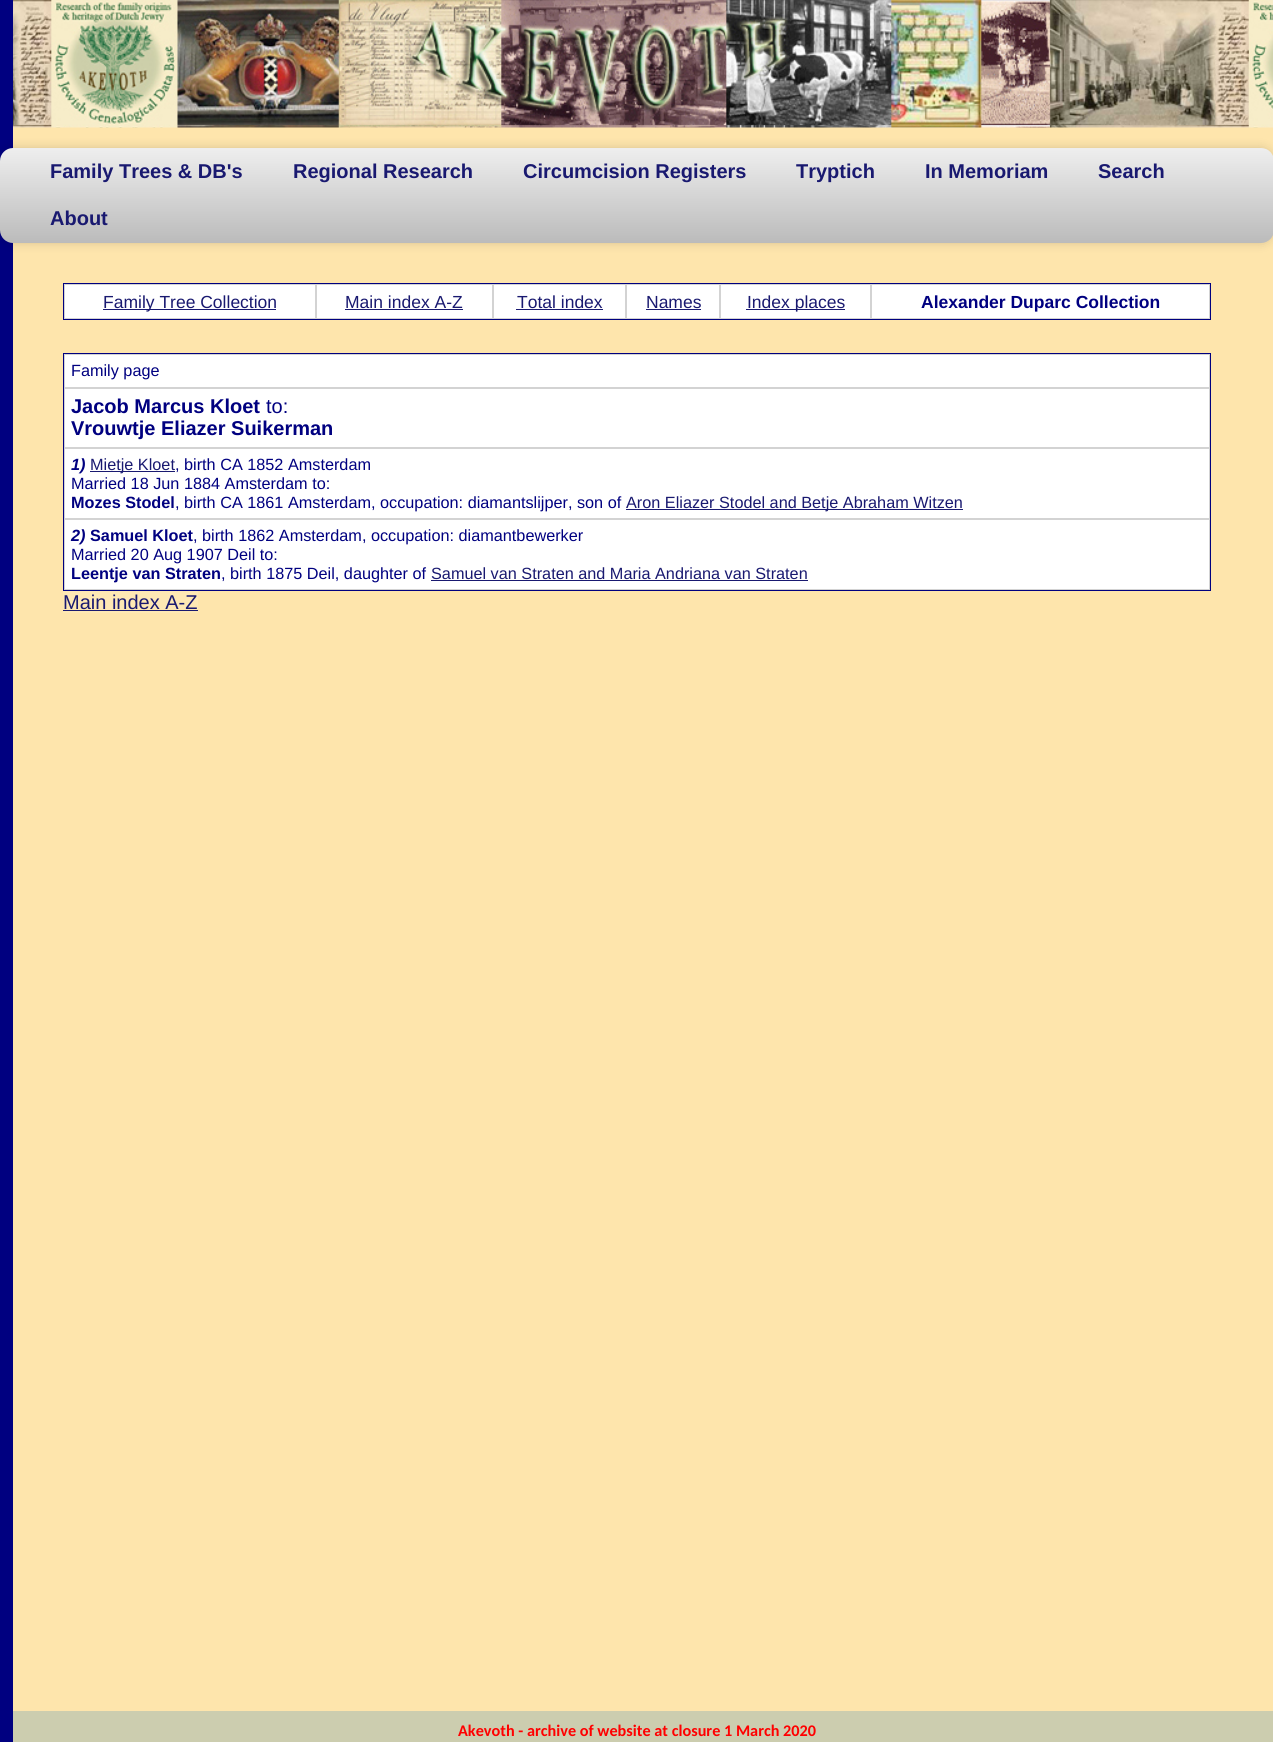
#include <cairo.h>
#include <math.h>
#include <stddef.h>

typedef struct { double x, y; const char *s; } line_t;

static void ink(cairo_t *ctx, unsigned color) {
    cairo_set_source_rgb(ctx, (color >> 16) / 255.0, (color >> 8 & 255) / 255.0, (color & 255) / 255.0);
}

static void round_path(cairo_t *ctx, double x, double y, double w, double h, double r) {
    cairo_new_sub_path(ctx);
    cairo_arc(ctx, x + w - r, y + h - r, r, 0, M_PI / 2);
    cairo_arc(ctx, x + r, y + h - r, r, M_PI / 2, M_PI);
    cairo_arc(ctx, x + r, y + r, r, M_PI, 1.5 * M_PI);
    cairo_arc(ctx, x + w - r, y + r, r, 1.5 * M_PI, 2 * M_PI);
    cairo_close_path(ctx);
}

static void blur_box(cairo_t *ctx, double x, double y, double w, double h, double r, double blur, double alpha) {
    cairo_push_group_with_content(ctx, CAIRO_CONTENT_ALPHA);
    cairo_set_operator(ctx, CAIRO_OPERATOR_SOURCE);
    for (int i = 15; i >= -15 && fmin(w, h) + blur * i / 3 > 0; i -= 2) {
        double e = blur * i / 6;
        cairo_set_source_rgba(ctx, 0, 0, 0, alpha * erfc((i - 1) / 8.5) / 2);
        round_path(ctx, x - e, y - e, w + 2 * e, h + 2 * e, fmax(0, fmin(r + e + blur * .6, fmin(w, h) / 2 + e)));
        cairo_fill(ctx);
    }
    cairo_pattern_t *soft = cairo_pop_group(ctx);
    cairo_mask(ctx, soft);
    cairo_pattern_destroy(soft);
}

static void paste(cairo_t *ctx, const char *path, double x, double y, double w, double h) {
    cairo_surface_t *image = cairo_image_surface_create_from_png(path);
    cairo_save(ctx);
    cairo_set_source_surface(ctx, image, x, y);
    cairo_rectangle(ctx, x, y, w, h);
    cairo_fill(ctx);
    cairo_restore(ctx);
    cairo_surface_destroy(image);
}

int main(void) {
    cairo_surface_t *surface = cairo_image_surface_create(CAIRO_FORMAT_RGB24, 1273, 1742);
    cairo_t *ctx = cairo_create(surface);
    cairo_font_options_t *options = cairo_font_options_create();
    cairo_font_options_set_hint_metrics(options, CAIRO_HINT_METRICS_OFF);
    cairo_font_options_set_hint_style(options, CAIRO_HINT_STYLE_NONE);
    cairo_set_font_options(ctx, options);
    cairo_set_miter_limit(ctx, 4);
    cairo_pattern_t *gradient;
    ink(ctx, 0xFEE5AC);
    cairo_paint(ctx);
    paste(ctx, "media/1.png", 13, 0, 1260, 128);
    ink(ctx, 0x000080);
    cairo_rectangle(ctx, 0, 0, 13, 1742);
    cairo_fill(ctx);
    ink(ctx, 0x000000);
    blur_box(ctx, 0, 148, 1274, 95, 13, 5.5, 0.15);
    gradient = cairo_pattern_create_linear(637, 147, 637, 243);
    cairo_pattern_add_color_stop_rgba(gradient, 0, 0.937, 0.937, 0.937, 1);
    cairo_pattern_add_color_stop_rgba(gradient, 1, 0.733, 0.733, 0.733, 1);
    cairo_set_source(ctx, gradient);
    cairo_pattern_destroy(gradient);
    round_path(ctx, 0, 148, 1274, 95, 13);
    cairo_fill(ctx);
    cairo_select_font_face(ctx, "Liberation Sans", CAIRO_FONT_SLANT_NORMAL, CAIRO_FONT_WEIGHT_BOLD);
    cairo_set_font_size(ctx, 20);
    ink(ctx, 0x191970);
    {
        static const line_t items[] = {
            {50, 178, "Family Trees & DB's"},
            {293, 178, "Regional Research"},
            {523, 178, "Circumcision Registers"},
            {796, 178, "Tryptich"},
            {925, 178, "In Memoriam"},
            {1098, 178, "Search"},
            {50, 225, "About"},
        };
        for (size_t i = 0; i < sizeof items / sizeof *items; i++) {
            cairo_move_to(ctx, items[i].x, items[i].y);
            cairo_show_text(ctx, items[i].s);
        }
    }
    ink(ctx, 0xFFFFFF);
    cairo_rectangle(ctx, 65, 285, 1144, 33);
    cairo_fill(ctx);
    cairo_rectangle(ctx, 63.5, 283.5, 1147, 36);
    ink(ctx, 0x000080);
    cairo_set_line_width(ctx, 1);
    cairo_stroke(ctx);
    cairo_rectangle(ctx, 64.5, 284.5, 251, 34);
    ink(ctx, 0xD3D3D3);
    cairo_stroke(ctx);
    ink(ctx, 0x191970);
    cairo_rectangle(ctx, 103, 309, 173, 1);
    cairo_fill(ctx);
    cairo_select_font_face(ctx, "Liberation Sans", CAIRO_FONT_SLANT_NORMAL, CAIRO_FONT_WEIGHT_NORMAL);
    cairo_set_font_size(ctx, 17.5);
    cairo_move_to(ctx, 103, 308);
    cairo_show_text(ctx, "Family Tree Collection");
    cairo_rectangle(ctx, 316.5, 284.5, 176, 34);
    ink(ctx, 0xD3D3D3);
    cairo_stroke(ctx);
    ink(ctx, 0x191970);
    cairo_move_to(ctx, 345, 308);
    cairo_show_text(ctx, "Main index A-Z");
    cairo_rectangle(ctx, 345, 309, 118, 1);
    cairo_fill(ctx);
    cairo_rectangle(ctx, 493.5, 284.5, 132, 34);
    ink(ctx, 0xD3D3D3);
    cairo_stroke(ctx);
    ink(ctx, 0x191970);
    cairo_move_to(ctx, 517, 308);
    cairo_show_text(ctx, "Total index");
    cairo_rectangle(ctx, 516, 309, 87, 1);
    cairo_fill(ctx);
    cairo_rectangle(ctx, 626.5, 284.5, 93, 34);
    ink(ctx, 0xD3D3D3);
    cairo_stroke(ctx);
    ink(ctx, 0x191970);
    cairo_move_to(ctx, 646, 308);
    cairo_show_text(ctx, "Names");
    cairo_rectangle(ctx, 646, 309, 55, 1);
    cairo_fill(ctx);
    cairo_rectangle(ctx, 720.5, 284.5, 150, 34);
    ink(ctx, 0xD3D3D3);
    cairo_stroke(ctx);
    ink(ctx, 0x191970);
    cairo_rectangle(ctx, 746, 309, 99, 1);
    cairo_fill(ctx);
    cairo_move_to(ctx, 747, 308);
    cairo_show_text(ctx, "Index places");
    cairo_rectangle(ctx, 871.5, 284.5, 338, 34);
    ink(ctx, 0xD3D3D3);
    cairo_stroke(ctx);
    cairo_select_font_face(ctx, "Liberation Sans", CAIRO_FONT_SLANT_NORMAL, CAIRO_FONT_WEIGHT_BOLD);
    ink(ctx, 0x000080);
    cairo_move_to(ctx, 921, 308);
    cairo_show_text(ctx, "Alexander Duparc Collection");
    ink(ctx, 0xFFFFFF);
    cairo_rectangle(ctx, 65, 355, 1144, 234);
    cairo_fill(ctx);
    cairo_rectangle(ctx, 63.5, 353.5, 1147, 237);
    ink(ctx, 0x000080);
    cairo_stroke(ctx);
    cairo_rectangle(ctx, 64.5, 354.5, 1145, 33);
    ink(ctx, 0xD3D3D3);
    cairo_stroke(ctx);
    cairo_select_font_face(ctx, "Liberation Sans", CAIRO_FONT_SLANT_NORMAL, CAIRO_FONT_WEIGHT_NORMAL);
    cairo_set_font_size(ctx, 16.25);
    ink(ctx, 0x000080);
    cairo_move_to(ctx, 71, 376);
    cairo_show_text(ctx, "Family page");
    cairo_rectangle(ctx, 64.5, 388.5, 1145, 59);
    ink(ctx, 0xD3D3D3);
    cairo_stroke(ctx);
    cairo_select_font_face(ctx, "Liberation Sans", CAIRO_FONT_SLANT_NORMAL, CAIRO_FONT_WEIGHT_BOLD);
    cairo_set_font_size(ctx, 20);
    ink(ctx, 0x000080);
    cairo_move_to(ctx, 71, 413);
    cairo_show_text(ctx, "Jacob Marcus Kloet");
    cairo_select_font_face(ctx, "Liberation Sans", CAIRO_FONT_SLANT_NORMAL, CAIRO_FONT_WEIGHT_NORMAL);
    cairo_move_to(ctx, 266, 413);
    cairo_show_text(ctx, "to:");
    cairo_select_font_face(ctx, "Liberation Sans", CAIRO_FONT_SLANT_NORMAL, CAIRO_FONT_WEIGHT_BOLD);
    cairo_move_to(ctx, 71, 435);
    cairo_show_text(ctx, "Vrouwtje Eliazer Suikerman");
    cairo_rectangle(ctx, 64.5, 448.5, 1145, 70);
    ink(ctx, 0xD3D3D3);
    cairo_stroke(ctx);
    cairo_select_font_face(ctx, "Liberation Sans", CAIRO_FONT_SLANT_ITALIC, CAIRO_FONT_WEIGHT_BOLD);
    cairo_set_font_size(ctx, 16.25);
    ink(ctx, 0x000080);
    cairo_move_to(ctx, 71, 470);
    cairo_show_text(ctx, "1)");
    ink(ctx, 0x191970);
    cairo_rectangle(ctx, 90, 471, 85, 1);
    cairo_fill(ctx);
    cairo_select_font_face(ctx, "Liberation Sans", CAIRO_FONT_SLANT_NORMAL, CAIRO_FONT_WEIGHT_NORMAL);
    cairo_move_to(ctx, 90, 470);
    cairo_show_text(ctx, "Mietje Kloet");
    ink(ctx, 0x000080);
    cairo_move_to(ctx, 175, 470);
    cairo_show_text(ctx, ", birth CA 1852 Amsterdam");
    cairo_move_to(ctx, 71, 489);
    cairo_show_text(ctx, "Married 18 Jun 1884 Amsterdam to:");
    cairo_select_font_face(ctx, "Liberation Sans", CAIRO_FONT_SLANT_NORMAL, CAIRO_FONT_WEIGHT_BOLD);
    cairo_move_to(ctx, 71, 508);
    cairo_show_text(ctx, "Mozes Stodel");
    cairo_select_font_face(ctx, "Liberation Sans", CAIRO_FONT_SLANT_NORMAL, CAIRO_FONT_WEIGHT_NORMAL);
    cairo_move_to(ctx, 175, 508);
    cairo_show_text(ctx, ", birth CA 1861 Amsterdam, occupation: diamantslijper, son of");
    ink(ctx, 0x191970);
    cairo_rectangle(ctx, 626, 509, 337, 1);
    cairo_fill(ctx);
    cairo_move_to(ctx, 626, 508);
    cairo_show_text(ctx, "Aron Eliazer Stodel and Betje Abraham Witzen");
    cairo_rectangle(ctx, 64.5, 519.5, 1145, 70);
    ink(ctx, 0xD3D3D3);
    cairo_stroke(ctx);
    cairo_select_font_face(ctx, "Liberation Sans", CAIRO_FONT_SLANT_ITALIC, CAIRO_FONT_WEIGHT_BOLD);
    ink(ctx, 0x000080);
    cairo_move_to(ctx, 71, 541);
    cairo_show_text(ctx, "2)");
    cairo_select_font_face(ctx, "Liberation Sans", CAIRO_FONT_SLANT_NORMAL, CAIRO_FONT_WEIGHT_BOLD);
    cairo_move_to(ctx, 90, 541);
    cairo_show_text(ctx, "Samuel Kloet");
    cairo_select_font_face(ctx, "Liberation Sans", CAIRO_FONT_SLANT_NORMAL, CAIRO_FONT_WEIGHT_NORMAL);
    cairo_move_to(ctx, 193, 541);
    cairo_show_text(ctx, ", birth 1862 Amsterdam, occupation: diamantbewerker");
    cairo_move_to(ctx, 71, 560);
    cairo_show_text(ctx, "Married 20 Aug 1907 Deil to:");
    cairo_select_font_face(ctx, "Liberation Sans", CAIRO_FONT_SLANT_NORMAL, CAIRO_FONT_WEIGHT_BOLD);
    cairo_move_to(ctx, 71, 579);
    cairo_show_text(ctx, "Leentje van Straten");
    cairo_select_font_face(ctx, "Liberation Sans", CAIRO_FONT_SLANT_NORMAL, CAIRO_FONT_WEIGHT_NORMAL);
    cairo_move_to(ctx, 221, 579);
    cairo_show_text(ctx, ", birth 1875 Deil, daughter of");
    ink(ctx, 0x191970);
    cairo_move_to(ctx, 431, 579);
    cairo_show_text(ctx, "Samuel van Straten and Maria Andriana van Straten");
    cairo_rectangle(ctx, 431, 580, 377, 1);
    cairo_fill(ctx);
    ink(ctx, 0xFEE8B4);
    cairo_rectangle(ctx, 63, 591, 135, 22);
    cairo_fill(ctx);
    cairo_set_font_size(ctx, 20);
    ink(ctx, 0x191970);
    cairo_move_to(ctx, 63, 609);
    cairo_show_text(ctx, "Main index A-Z");
    cairo_rectangle(ctx, 63, 610, 135, 1);
    cairo_fill(ctx);
    ink(ctx, 0xCCCDAF);
    cairo_rectangle(ctx, 13, 1711, 1260, 31);
    cairo_fill(ctx);
    cairo_select_font_face(ctx, "Carlito", CAIRO_FONT_SLANT_NORMAL, CAIRO_FONT_WEIGHT_BOLD);
    cairo_set_font_size(ctx, 16.25);
    ink(ctx, 0xFF0000);
    cairo_move_to(ctx, 458, 1736);
    cairo_show_text(ctx, "Akevoth - archive of website at closure 1 March 2020");
    cairo_surface_write_to_png(surface, "image.png");
    cairo_font_options_destroy(options);
    cairo_destroy(ctx);
    cairo_surface_destroy(surface);
    return 0;
}
